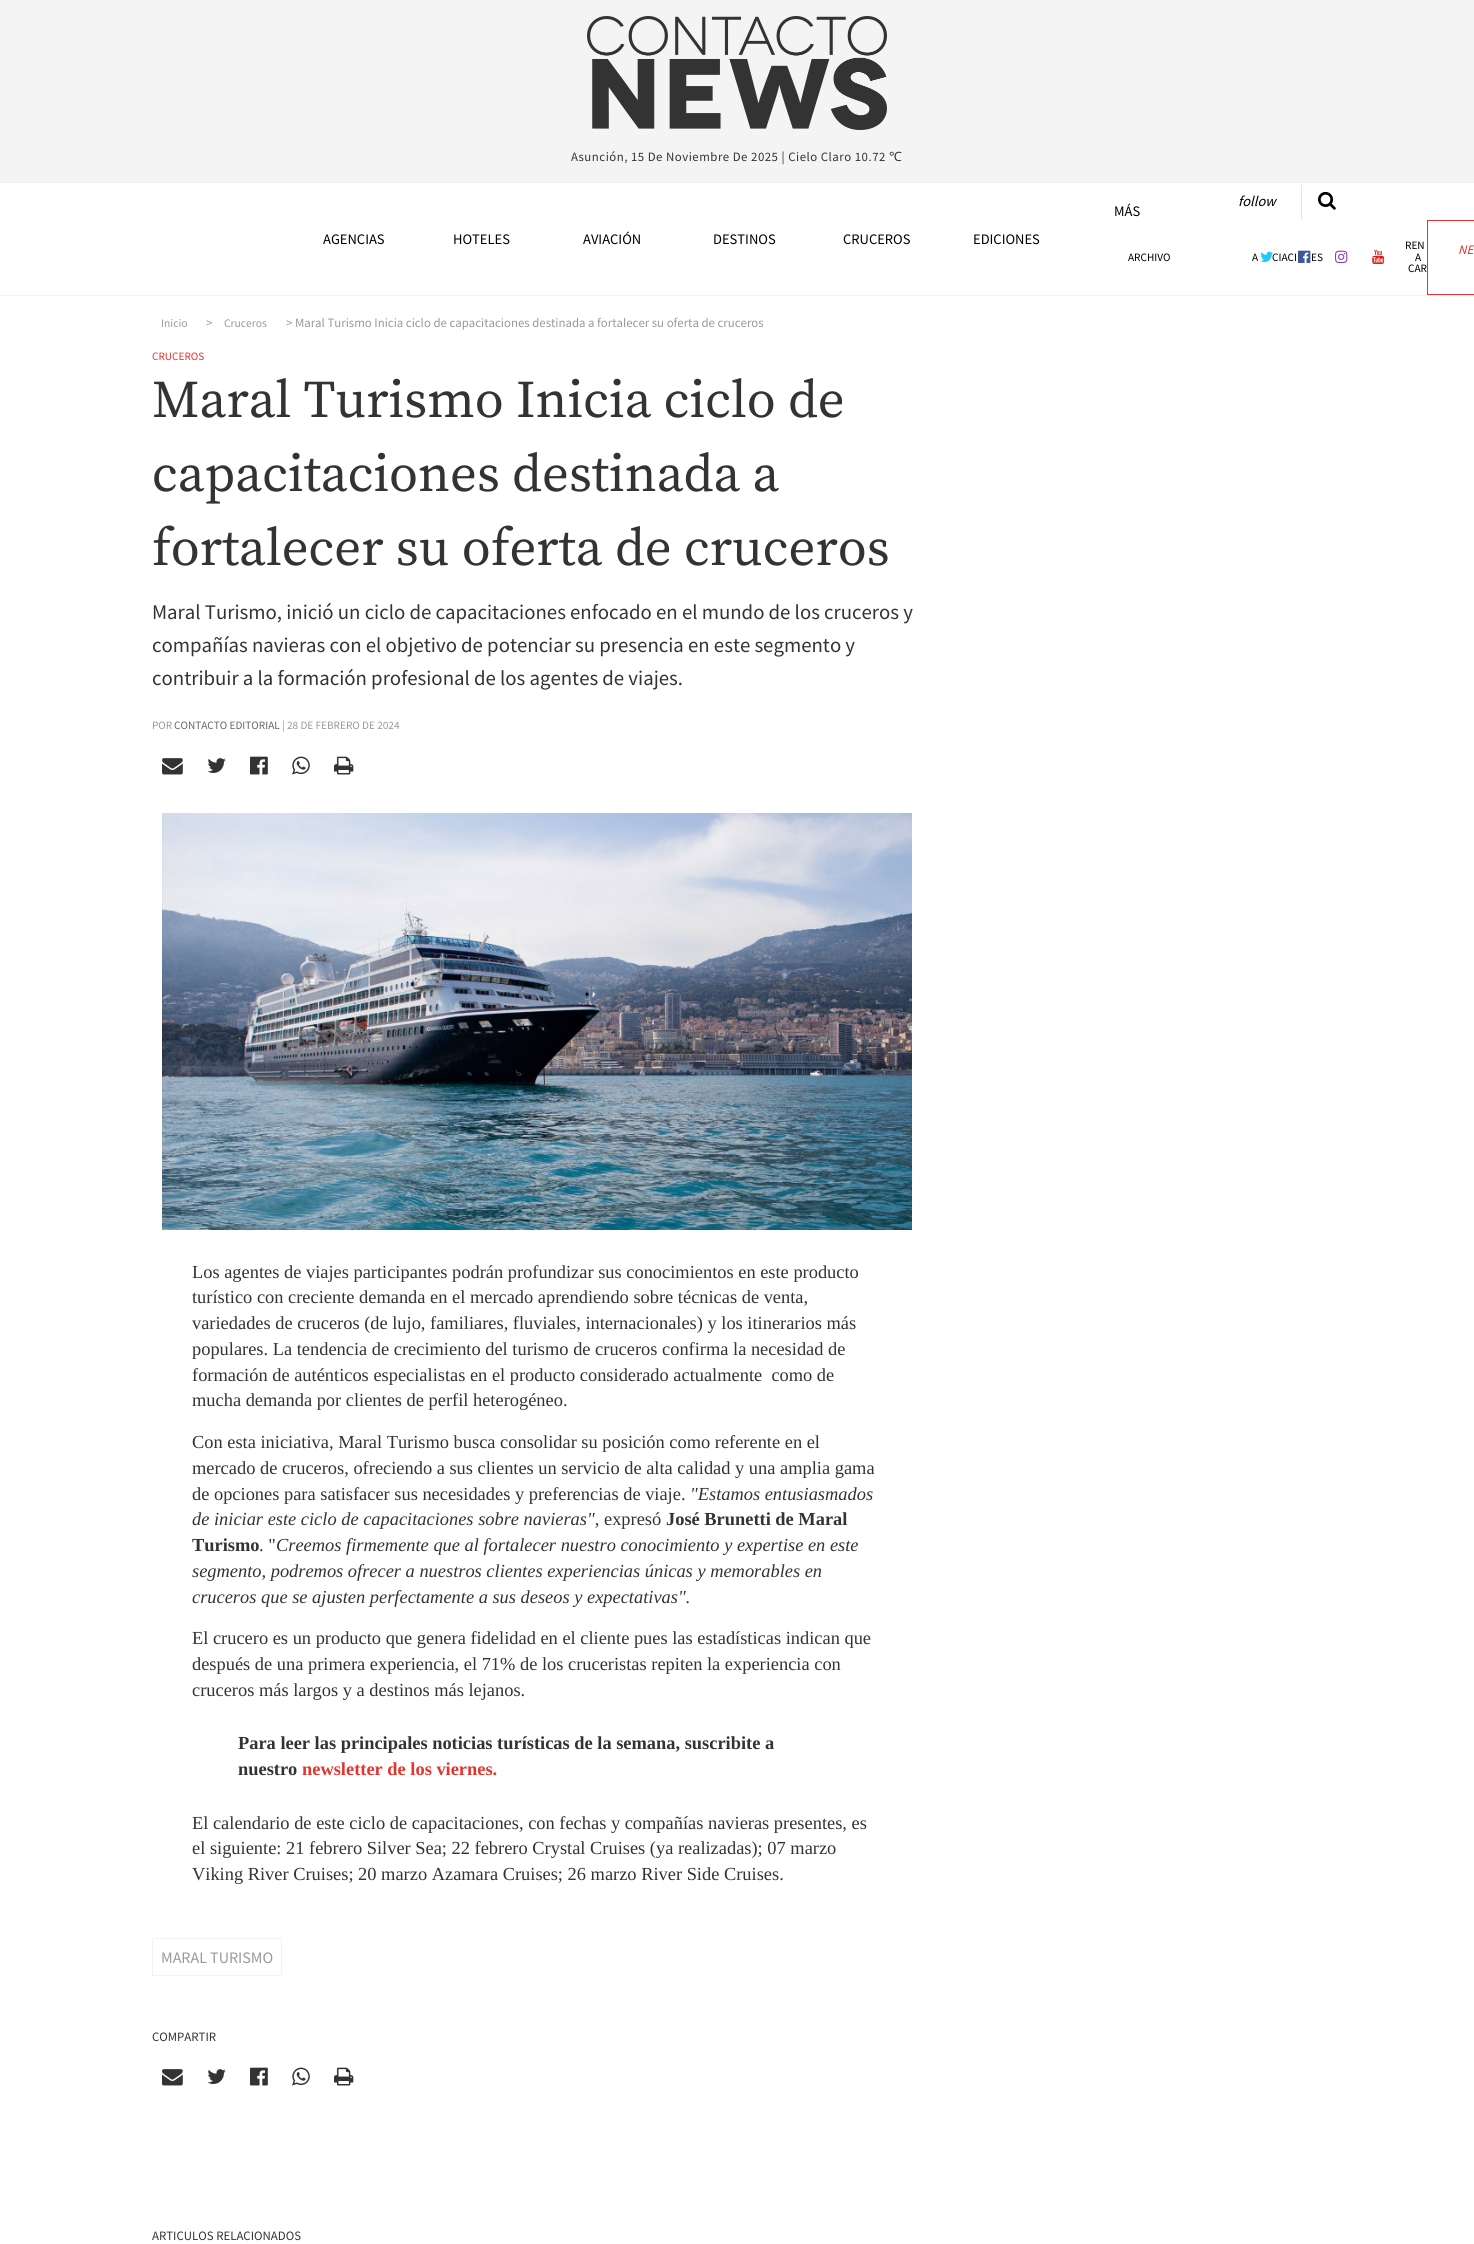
#include <cairo.h>
#include <math.h>
#include <stddef.h>

typedef struct { double x, y; const char *s; } line_t;
typedef struct { double x, y, w, h; unsigned color; } box_t;

static void ink(cairo_t *ctx, unsigned color) {
    cairo_set_source_rgb(ctx, (color >> 16) / 255.0, (color >> 8 & 255) / 255.0, (color & 255) / 255.0);
}

static void write_spaced(cairo_t *ctx, double x, double y, const char *s, double letter, double word) {
    cairo_move_to(ctx, x, y);
    while (*s) {
        char ch[5] = {0};
        int n = 0;
        do ch[n++] = *s++; while ((*s & 0xC0) == 0x80);
        cairo_show_text(ctx, ch);
        cairo_rel_move_to(ctx, letter + word * (*ch == ' '), 0);
    }
}

static void paste(cairo_t *ctx, const char *path, double x, double y, double w, double h) {
    cairo_surface_t *image = cairo_image_surface_create_from_png(path);
    cairo_save(ctx);
    cairo_set_source_surface(ctx, image, x, y);
    cairo_rectangle(ctx, x, y, w, h);
    cairo_fill(ctx);
    cairo_restore(ctx);
    cairo_surface_destroy(image);
}

int main(void) {
    cairo_surface_t *surface = cairo_image_surface_create(CAIRO_FORMAT_RGB24, 1474, 2244);
    cairo_t *ctx = cairo_create(surface);
    cairo_font_options_t *options = cairo_font_options_create();
    cairo_font_options_set_hint_metrics(options, CAIRO_HINT_METRICS_OFF);
    cairo_font_options_set_hint_style(options, CAIRO_HINT_STYLE_NONE);
    cairo_set_font_options(ctx, options);
    cairo_set_miter_limit(ctx, 4);
    ink(ctx, 0xFFFFFF);
    cairo_paint(ctx);
    ink(ctx, 0xF4F4F4);
    cairo_rectangle(ctx, 0, 0, 1474, 182);
    cairo_fill(ctx);
    paste(ctx, "media/1.png", 587, 16, 300, 114);
    cairo_select_font_face(ctx, "Source Sans Pro", CAIRO_FONT_SLANT_NORMAL, CAIRO_FONT_WEIGHT_NORMAL);
    cairo_set_font_size(ctx, 12.8);
    ink(ctx, 0x333333);
    write_spaced(ctx, 571, 161, "Asunción, 15 De Noviembre De 2025 | Cielo Claro 10.72", 0.5, 0);
    cairo_select_font_face(ctx, "Noto Sans", CAIRO_FONT_SLANT_NORMAL, CAIRO_FONT_WEIGHT_NORMAL);
    write_spaced(ctx, 889, 161, "℃", 0.5, 0);
    {
        static const box_t items[] = {
            {0, 182, 1474, 1, 0xF3F3F3},
            {0, 295, 1474, 1, 0xF3F3F3},
            {1301, 185, 1, 35, 0xE6E6E6},
        };
        for (size_t i = 0; i < sizeof items / sizeof *items; i++) {
            ink(ctx, items[i].color);
            cairo_rectangle(ctx, items[i].x, items[i].y, items[i].w, items[i].h);
            cairo_fill(ctx);
        }
    }
    paste(ctx, "media/2.png", 1318, 191, 18, 19);
    cairo_select_font_face(ctx, "Source Sans Pro", CAIRO_FONT_SLANT_ITALIC, CAIRO_FONT_WEIGHT_NORMAL);
    cairo_set_font_size(ctx, 14.5);
    ink(ctx, 0x000000);
    cairo_move_to(ctx, 1238, 206);
    cairo_show_text(ctx, "follow");
    cairo_select_font_face(ctx, "Source Sans Pro", CAIRO_FONT_SLANT_NORMAL, CAIRO_FONT_WEIGHT_NORMAL);
    cairo_set_font_size(ctx, 11.25);
    cairo_move_to(ctx, 1272, 261);
    cairo_show_text(ctx, "CIACI");
    paste(ctx, "media/3.png", 1260, 251, 13, 11);
    paste(ctx, "media/4.png", 1298, 250, 13, 13);
    paste(ctx, "media/5.png", 1335, 250, 13, 13);
    paste(ctx, "media/6.png", 1372, 249, 13, 16);
    cairo_rectangle(ctx, 1427.5, 220.5, 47, 74);
    ink(ctx, 0xE3342F);
    cairo_set_line_width(ctx, 1);
    cairo_stroke(ctx);
    cairo_select_font_face(ctx, "Source Sans Pro", CAIRO_FONT_SLANT_ITALIC, CAIRO_FONT_WEIGHT_NORMAL);
    cairo_set_font_size(ctx, 13);
    cairo_move_to(ctx, 1458, 254);
    cairo_show_text(ctx, "NE");
    cairo_select_font_face(ctx, "Source Sans Pro", CAIRO_FONT_SLANT_NORMAL, CAIRO_FONT_WEIGHT_NORMAL);
    cairo_set_font_size(ctx, 14.5);
    ink(ctx, 0x000000);
    {
        static const line_t items[] = {
            {323, 244, "AGENCIAS"},
            {453, 244, "HOTELES"},
            {583, 244, "AVIACIÓN"},
            {713, 244, "DESTINOS"},
            {843, 244, "CRUCEROS"},
            {973, 244, "EDICIONES"},
            {1114, 216, "MÁS"},
        };
        for (size_t i = 0; i < sizeof items / sizeof *items; i++) {
            cairo_move_to(ctx, items[i].x, items[i].y);
            cairo_show_text(ctx, items[i].s);
        }
    }
    cairo_set_font_size(ctx, 11.25);
    {
        static const line_t items[] = {
            {1128, 261, "ARCHIVO"},
            {1252, 261, "A"},
            {1311, 261, "ES"},
            {1405, 249, "REN"},
            {1415, 261, "A"},
            {1408, 272, "CAR"},
        };
        for (size_t i = 0; i < sizeof items / sizeof *items; i++) {
            cairo_move_to(ctx, items[i].x, items[i].y);
            cairo_show_text(ctx, items[i].s);
        }
    }
    cairo_set_font_size(ctx, 11.5);
    ink(ctx, 0x999999);
    cairo_move_to(ctx, 161, 327);
    cairo_show_text(ctx, "Inicio");
    cairo_set_font_size(ctx, 12.8);
    cairo_move_to(ctx, 206, 327);
    cairo_show_text(ctx, ">");
    cairo_set_font_size(ctx, 11.5);
    cairo_move_to(ctx, 224, 327);
    cairo_show_text(ctx, "Cruceros");
    cairo_set_font_size(ctx, 12.8);
    cairo_move_to(ctx, 286, 327);
    cairo_show_text(ctx, "> Maral Turismo Inicia ciclo de capacitaciones destinada a fortalecer su oferta de cruceros");
    cairo_set_font_size(ctx, 11.25);
    ink(ctx, 0xE3342F);
    cairo_move_to(ctx, 152, 360);
    cairo_show_text(ctx, "CRUCEROS");
    cairo_select_font_face(ctx, "Source Serif Pro", CAIRO_FONT_SLANT_NORMAL, CAIRO_FONT_WEIGHT_NORMAL);
    cairo_set_font_size(ctx, 52.75);
    ink(ctx, 0x333333);
    {
        static const line_t items[] = {
            {152, 417, "Maral Turismo Inicia ciclo de"},
            {152, 491, "capacitaciones destinada a"},
            {152, 565, "fortalecer su oferta de cruceros"},
        };
        for (size_t i = 0; i < sizeof items / sizeof *items; i++) {
            cairo_move_to(ctx, items[i].x, items[i].y);
            cairo_show_text(ctx, items[i].s);
        }
    }
    cairo_select_font_face(ctx, "Source Sans Pro", CAIRO_FONT_SLANT_NORMAL, CAIRO_FONT_WEIGHT_NORMAL);
    cairo_set_font_size(ctx, 20.8);
    {
        static const line_t items[] = {
            {152, 619, "Maral Turismo, inició un ciclo de capacitaciones enfocado en el mundo de los cruceros y"},
            {152, 652, "compañías navieras con el objetivo de potenciar su presencia en este segmento y"},
            {152, 685, "contribuir a la formación profesional de los agentes de viajes."},
        };
        for (size_t i = 0; i < sizeof items / sizeof *items; i++) {
            cairo_move_to(ctx, items[i].x, items[i].y);
            cairo_show_text(ctx, items[i].s);
        }
    }
    cairo_set_font_size(ctx, 11.25);
    ink(ctx, 0x999999);
    cairo_move_to(ctx, 152, 729);
    cairo_show_text(ctx, "POR");
    ink(ctx, 0x666666);
    cairo_move_to(ctx, 174, 729);
    cairo_show_text(ctx, "CONTACTO EDITORIAL");
    ink(ctx, 0x999999);
    cairo_move_to(ctx, 282, 729);
    cairo_show_text(ctx, "| 28 DE FEBRERO DE 2024");
    paste(ctx, "media/7.png", 162, 758, 21, 17);
    paste(ctx, "media/8.png", 207, 758, 19, 15);
    paste(ctx, "media/9.png", 250, 756, 18, 19);
    paste(ctx, "media/10.png", 292, 756, 18, 19);
    paste(ctx, "media/11.png", 334, 756, 20, 19);
    paste(ctx, "media/12.png", 162, 813, 750, 417);
    cairo_select_font_face(ctx, "Liberation Serif", CAIRO_FONT_SLANT_NORMAL, CAIRO_FONT_WEIGHT_NORMAL);
    cairo_set_font_size(ctx, 18.4);
    ink(ctx, 0x333333);
    {
        static const line_t items[] = {
            {192, 1278, "Los agentes de viajes participantes podrán profundizar sus conocimientos en este producto"},
            {192, 1303, "turístico con creciente demanda en el mercado aprendiendo sobre técnicas de venta,"},
            {192, 1329, "variedades de cruceros (de lujo, familiares, fluviales, internacionales) y los itinerarios más"},
            {192, 1355, "populares. La tendencia de crecimiento del turismo de cruceros confirma la necesidad de"},
            {192, 1381, "formación de auténticos especialistas en el producto considerado actualmente  como de"},
            {192, 1406, "mucha demanda por clientes de perfil heterogéneo."},
            {192, 1448, "Con esta iniciativa, Maral Turismo busca consolidar su posición como referente en el"},
            {192, 1474, "mercado de cruceros, ofreciendo a sus clientes un servicio de alta calidad y una amplia gama"},
            {192, 1500, "de opciones para satisfacer sus necesidades y preferencias de viaje."},
        };
        for (size_t i = 0; i < sizeof items / sizeof *items; i++) {
            cairo_move_to(ctx, items[i].x, items[i].y);
            cairo_show_text(ctx, items[i].s);
        }
    }
    cairo_select_font_face(ctx, "Liberation Serif", CAIRO_FONT_SLANT_ITALIC, CAIRO_FONT_WEIGHT_NORMAL);
    cairo_move_to(ctx, 690, 1500);
    cairo_show_text(ctx, "\"Estamos entusiasmados");
    cairo_move_to(ctx, 192, 1525);
    cairo_show_text(ctx, "de iniciar este ciclo de capacitaciones sobre navieras\",");
    cairo_select_font_face(ctx, "Liberation Serif", CAIRO_FONT_SLANT_NORMAL, CAIRO_FONT_WEIGHT_NORMAL);
    cairo_move_to(ctx, 604, 1525);
    cairo_show_text(ctx, "expresó");
    cairo_select_font_face(ctx, "Liberation Serif", CAIRO_FONT_SLANT_NORMAL, CAIRO_FONT_WEIGHT_BOLD);
    cairo_move_to(ctx, 666, 1525);
    cairo_show_text(ctx, "José Brunetti de Maral");
    cairo_move_to(ctx, 192, 1551);
    cairo_show_text(ctx, "Turismo");
    cairo_select_font_face(ctx, "Liberation Serif", CAIRO_FONT_SLANT_NORMAL, CAIRO_FONT_WEIGHT_NORMAL);
    cairo_move_to(ctx, 259, 1551);
    cairo_show_text(ctx, ". \"");
    cairo_select_font_face(ctx, "Liberation Serif", CAIRO_FONT_SLANT_ITALIC, CAIRO_FONT_WEIGHT_NORMAL);
    {
        static const line_t items[] = {
            {276, 1551, "Creemos firmemente que al fortalecer nuestro conocimiento y expertise en este"},
            {192, 1577, "segmento, podremos ofrecer a nuestros clientes experiencias únicas y memorables en"},
            {192, 1603, "cruceros que se ajusten perfectamente a sus deseos y expectativas\"."},
        };
        for (size_t i = 0; i < sizeof items / sizeof *items; i++) {
            cairo_move_to(ctx, items[i].x, items[i].y);
            cairo_show_text(ctx, items[i].s);
        }
    }
    cairo_select_font_face(ctx, "Liberation Serif", CAIRO_FONT_SLANT_NORMAL, CAIRO_FONT_WEIGHT_NORMAL);
    {
        static const line_t items[] = {
            {192, 1644, "El crucero es un producto que genera fidelidad en el cliente pues las estadísticas indican que"},
            {192, 1670, "después de una primera experiencia, el 71% de los cruceristas repiten la experiencia con"},
            {192, 1696, "cruceros más largos y a destinos más lejanos."},
        };
        for (size_t i = 0; i < sizeof items / sizeof *items; i++) {
            cairo_move_to(ctx, items[i].x, items[i].y);
            cairo_show_text(ctx, items[i].s);
        }
    }
    cairo_select_font_face(ctx, "Liberation Serif", CAIRO_FONT_SLANT_NORMAL, CAIRO_FONT_WEIGHT_BOLD);
    cairo_move_to(ctx, 238, 1749);
    cairo_show_text(ctx, "Para leer las principales noticias turísticas de la semana, suscribite a");
    cairo_move_to(ctx, 238, 1775);
    cairo_show_text(ctx, "nuestro");
    ink(ctx, 0xE3342F);
    cairo_move_to(ctx, 302, 1775);
    cairo_show_text(ctx, "newsletter de los viernes.");
    cairo_select_font_face(ctx, "Liberation Serif", CAIRO_FONT_SLANT_NORMAL, CAIRO_FONT_WEIGHT_NORMAL);
    ink(ctx, 0x333333);
    {
        static const line_t items[] = {
            {192, 1829, "El calendario de este ciclo de capacitaciones, con fechas y compañías navieras presentes, es"},
            {192, 1854, "el siguiente: 21 febrero Silver Sea; 22 febrero Crystal Cruises (ya realizadas); 07 marzo"},
            {192, 1880, "Viking River Cruises; 20 marzo Azamara Cruises; 26 marzo River Side Cruises."},
        };
        for (size_t i = 0; i < sizeof items / sizeof *items; i++) {
            cairo_move_to(ctx, items[i].x, items[i].y);
            cairo_show_text(ctx, items[i].s);
        }
    }
    cairo_rectangle(ctx, 152.5, 1938.5, 129, 37);
    ink(ctx, 0xF3F3F3);
    cairo_stroke(ctx);
    cairo_select_font_face(ctx, "Source Sans Pro", CAIRO_FONT_SLANT_NORMAL, CAIRO_FONT_WEIGHT_NORMAL);
    cairo_set_font_size(ctx, 16);
    ink(ctx, 0x999999);
    cairo_move_to(ctx, 161, 1963);
    cairo_show_text(ctx, "MARAL TURISMO");
    cairo_set_font_size(ctx, 12.8);
    ink(ctx, 0x333333);
    cairo_move_to(ctx, 152, 2041);
    cairo_show_text(ctx, "COMPARTIR");
    paste(ctx, "media/7.png", 162, 2069, 21, 17);
    paste(ctx, "media/8.png", 207, 2069, 19, 15);
    paste(ctx, "media/9.png", 250, 2067, 18, 19);
    paste(ctx, "media/10.png", 292, 2067, 18, 19);
    paste(ctx, "media/11.png", 334, 2067, 20, 19);
    cairo_move_to(ctx, 152, 2240);
    cairo_show_text(ctx, "ARTICULOS RELACIONADOS");
    cairo_surface_write_to_png(surface, "image.png");
    cairo_font_options_destroy(options);
    cairo_destroy(ctx);
    cairo_surface_destroy(surface);
    return 0;
}
